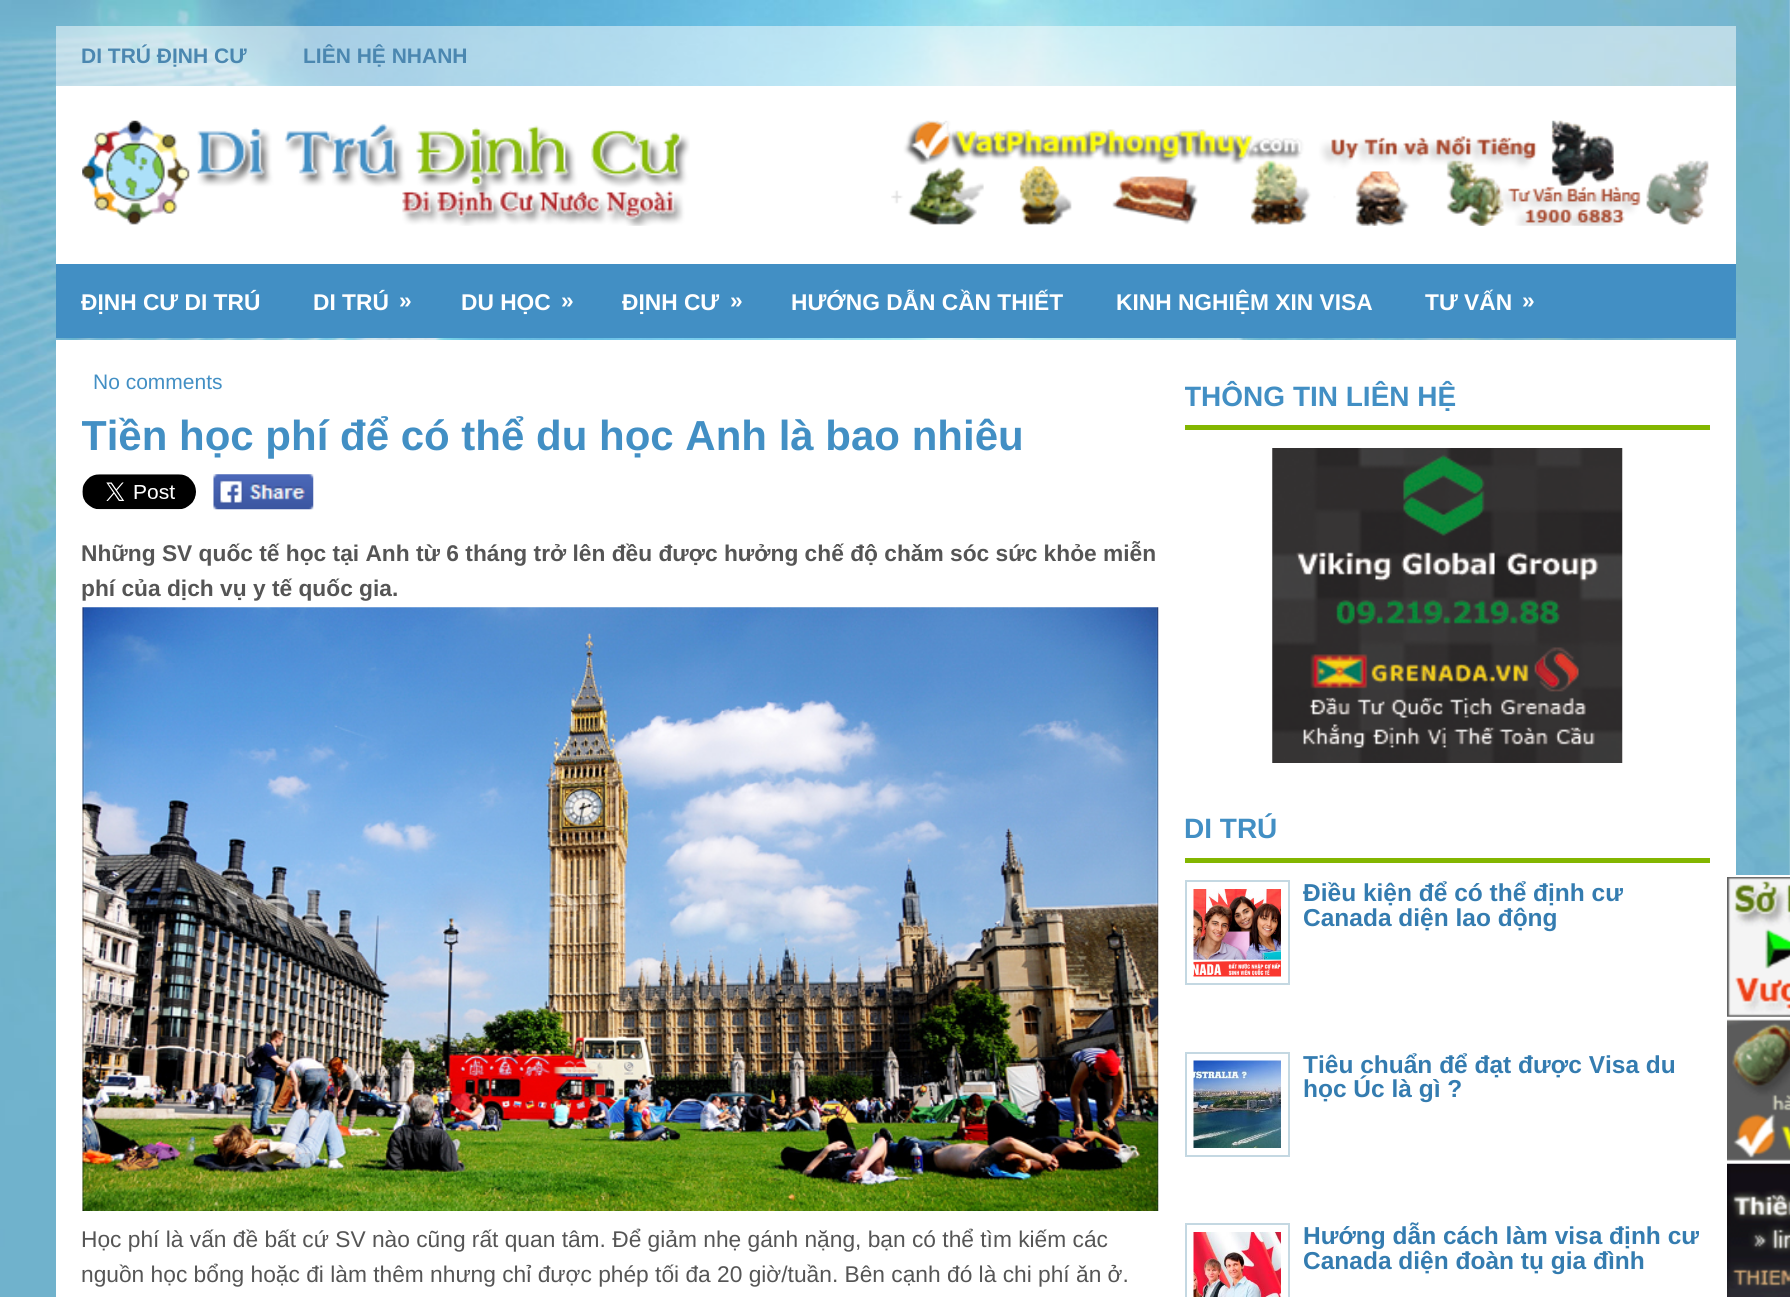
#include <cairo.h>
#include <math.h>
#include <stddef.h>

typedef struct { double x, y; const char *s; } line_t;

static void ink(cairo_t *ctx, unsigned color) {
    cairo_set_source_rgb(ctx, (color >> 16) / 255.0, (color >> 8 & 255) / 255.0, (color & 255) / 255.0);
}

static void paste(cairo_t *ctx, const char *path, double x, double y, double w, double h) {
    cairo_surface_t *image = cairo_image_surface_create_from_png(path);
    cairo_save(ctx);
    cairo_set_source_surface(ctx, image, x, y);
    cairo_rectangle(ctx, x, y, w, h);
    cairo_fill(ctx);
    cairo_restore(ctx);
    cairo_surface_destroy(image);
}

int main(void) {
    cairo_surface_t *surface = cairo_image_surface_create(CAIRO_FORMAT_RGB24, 1790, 1297);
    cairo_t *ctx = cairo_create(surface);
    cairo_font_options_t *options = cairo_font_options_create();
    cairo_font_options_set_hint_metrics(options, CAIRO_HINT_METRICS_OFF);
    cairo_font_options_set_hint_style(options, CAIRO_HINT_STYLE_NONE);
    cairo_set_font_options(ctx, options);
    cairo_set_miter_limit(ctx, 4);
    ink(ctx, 0xFFFFFF);
    cairo_paint(ctx);
    paste(ctx, "media/1.png", 0, 0, 1790, 1297);
    cairo_set_source_rgba(ctx, 1, 1, 1, 0.5);
    cairo_rectangle(ctx, 56, 26, 1680, 60);
    cairo_fill(ctx);
    cairo_select_font_face(ctx, "Liberation Sans", CAIRO_FONT_SLANT_NORMAL, CAIRO_FONT_WEIGHT_BOLD);
    cairo_set_font_size(ctx, 21);
    ink(ctx, 0x4B87B0);
    cairo_move_to(ctx, 81, 63);
    cairo_show_text(ctx, "DI TRÚ ĐỊNH CƯ");
    cairo_move_to(ctx, 303, 63);
    cairo_show_text(ctx, "LIÊN HỆ NHANH");
    ink(ctx, 0xFFFFFF);
    cairo_rectangle(ctx, 56, 86, 1680, 178);
    cairo_fill(ctx);
    paste(ctx, "media/2.png", 82, 120, 608, 106);
    paste(ctx, "media/3.png", 891, 120, 818, 106);
    ink(ctx, 0x428FC4);
    cairo_rectangle(ctx, 56, 264, 1680, 74);
    cairo_fill(ctx);
    cairo_set_font_size(ctx, 22.75);
    ink(ctx, 0xFFFFFF);
    {
        static const line_t items[] = {
            {81, 310, "ĐỊNH CƯ DI TRÚ"},
            {313, 310, "DI TRÚ"},
            {399, 308, "»"},
            {461, 310, "DU HỌC"},
            {561, 308, "»"},
            {622, 310, "ĐỊNH CƯ"},
            {730, 308, "»"},
            {791, 310, "HƯỚNG DẪN CẦN THIẾT"},
            {1116, 310, "KINH NGHIỆM XIN VISA"},
            {1425, 310, "TƯ VẤN"},
            {1522, 308, "»"},
        };
        for (size_t i = 0; i < sizeof items / sizeof *items; i++) {
            cairo_move_to(ctx, items[i].x, items[i].y);
            cairo_show_text(ctx, items[i].s);
        }
    }
    cairo_rectangle(ctx, 56, 340, 1680, 957);
    cairo_fill(ctx);
    cairo_select_font_face(ctx, "Liberation Sans", CAIRO_FONT_SLANT_NORMAL, CAIRO_FONT_WEIGHT_NORMAL);
    cairo_set_font_size(ctx, 21);
    ink(ctx, 0x428FC4);
    cairo_move_to(ctx, 93, 389);
    cairo_show_text(ctx, "No comments");
    cairo_save(ctx);
    cairo_rectangle(ctx, 82, 366, 1077, 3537);
    cairo_clip(ctx);
    cairo_select_font_face(ctx, "Liberation Sans", CAIRO_FONT_SLANT_NORMAL, CAIRO_FONT_WEIGHT_BOLD);
    cairo_set_font_size(ctx, 42);
    cairo_move_to(ctx, 81, 450);
    cairo_show_text(ctx, "Tiền học phí để có thể du học Anh là bao nhiêu");
    cairo_restore(ctx);
    paste(ctx, "media/4.png", 82, 474, 114, 36);
    paste(ctx, "media/5.png", 213, 474, 101, 36);
    cairo_select_font_face(ctx, "Liberation Sans", CAIRO_FONT_SLANT_NORMAL, CAIRO_FONT_WEIGHT_BOLD);
    cairo_set_font_size(ctx, 22.75);
    ink(ctx, 0x555555);
    cairo_move_to(ctx, 81, 561);
    cairo_show_text(ctx, "Những SV quốc tế học tại Anh từ 6 tháng trở lên đều được hưởng chế độ chǎm sóc sức khỏe miễn");
    cairo_move_to(ctx, 81, 596);
    cairo_show_text(ctx, "phí của dịch vụ y tế quốc gia.");
    paste(ctx, "media/6.png", 82, 607, 1077, 604);
    cairo_select_font_face(ctx, "Liberation Sans", CAIRO_FONT_SLANT_NORMAL, CAIRO_FONT_WEIGHT_NORMAL);
    cairo_move_to(ctx, 81, 1247);
    cairo_show_text(ctx, "Học phí là vấn đề bất cứ SV nào cũng rất quan tâm. Để giảm nhẹ gánh nặng, bạn có thể tìm kiếm các");
    cairo_move_to(ctx, 81, 1282);
    cairo_show_text(ctx, "nguồn học bổng hoặc đi làm thêm nhưng chỉ được phép tối đa 20 giờ/tuần. Bên cạnh đó là chi phí ǎn ở.");
    ink(ctx, 0x83B600);
    cairo_rectangle(ctx, 1185, 425, 525, 5);
    cairo_fill(ctx);
    cairo_save(ctx);
    cairo_rectangle(ctx, 1185, 366, 525, 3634);
    cairo_clip(ctx);
    cairo_select_font_face(ctx, "Liberation Sans", CAIRO_FONT_SLANT_NORMAL, CAIRO_FONT_WEIGHT_BOLD);
    cairo_set_font_size(ctx, 28);
    ink(ctx, 0x428FC4);
    cairo_move_to(ctx, 1184, 406);
    cairo_show_text(ctx, "THÔNG TIN LIÊN HỆ");
    cairo_restore(ctx);
    paste(ctx, "media/7.png", 1272, 448, 351, 315);
    cairo_rectangle(ctx, 1185, 858, 525, 5);
    cairo_fill(ctx);
    cairo_select_font_face(ctx, "Liberation Sans", CAIRO_FONT_SLANT_NORMAL, CAIRO_FONT_WEIGHT_BOLD);
    cairo_set_font_size(ctx, 28);
    ink(ctx, 0x428FC4);
    cairo_move_to(ctx, 1184, 838);
    cairo_show_text(ctx, "DI TRÚ");
    cairo_rectangle(ctx, 1186, 881, 103, 103);
    ink(ctx, 0xC4D8E2);
    cairo_stroke(ctx);
    paste(ctx, "media/8.png", 1193, 889, 88, 88);
    cairo_set_font_size(ctx, 24.5);
    ink(ctx, 0x347CB0);
    cairo_move_to(ctx, 1303, 901);
    cairo_show_text(ctx, "Điều kiện để có thể định cư");
    cairo_move_to(ctx, 1303, 926);
    cairo_show_text(ctx, "Canada diện lao động");
    cairo_rectangle(ctx, 1186, 1053, 103, 103);
    ink(ctx, 0xC4D8E2);
    cairo_stroke(ctx);
    paste(ctx, "media/9.png", 1193, 1060, 88, 88);
    ink(ctx, 0x347CB0);
    cairo_move_to(ctx, 1303, 1073);
    cairo_show_text(ctx, "Tiêu chuẩn để đạt được Visa du");
    cairo_move_to(ctx, 1303, 1097);
    cairo_show_text(ctx, "học Úc là gì ?");
    cairo_rectangle(ctx, 1186, 1224, 103, 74);
    ink(ctx, 0xC4D8E2);
    cairo_stroke(ctx);
    paste(ctx, "media/10.png", 1193, 1232, 88, 65);
    ink(ctx, 0x347CB0);
    cairo_move_to(ctx, 1303, 1244);
    cairo_show_text(ctx, "Hướng dẫn cách làm visa định cư");
    cairo_move_to(ctx, 1303, 1269);
    cairo_show_text(ctx, "Canada diện đoàn tụ gia đình");
    ink(ctx, 0xFFFFFF);
    cairo_rectangle(ctx, 1736, 875, 54, 422);
    cairo_fill(ctx);
    paste(ctx, "media/11.png", 1727, 877, 63, 140);
    paste(ctx, "media/12.png", 1727, 1019, 63, 142);
    paste(ctx, "media/13.png", 1727, 1163, 63, 134);
    cairo_surface_write_to_png(surface, "image.png");
    cairo_font_options_destroy(options);
    cairo_destroy(ctx);
    cairo_surface_destroy(surface);
    return 0;
}
